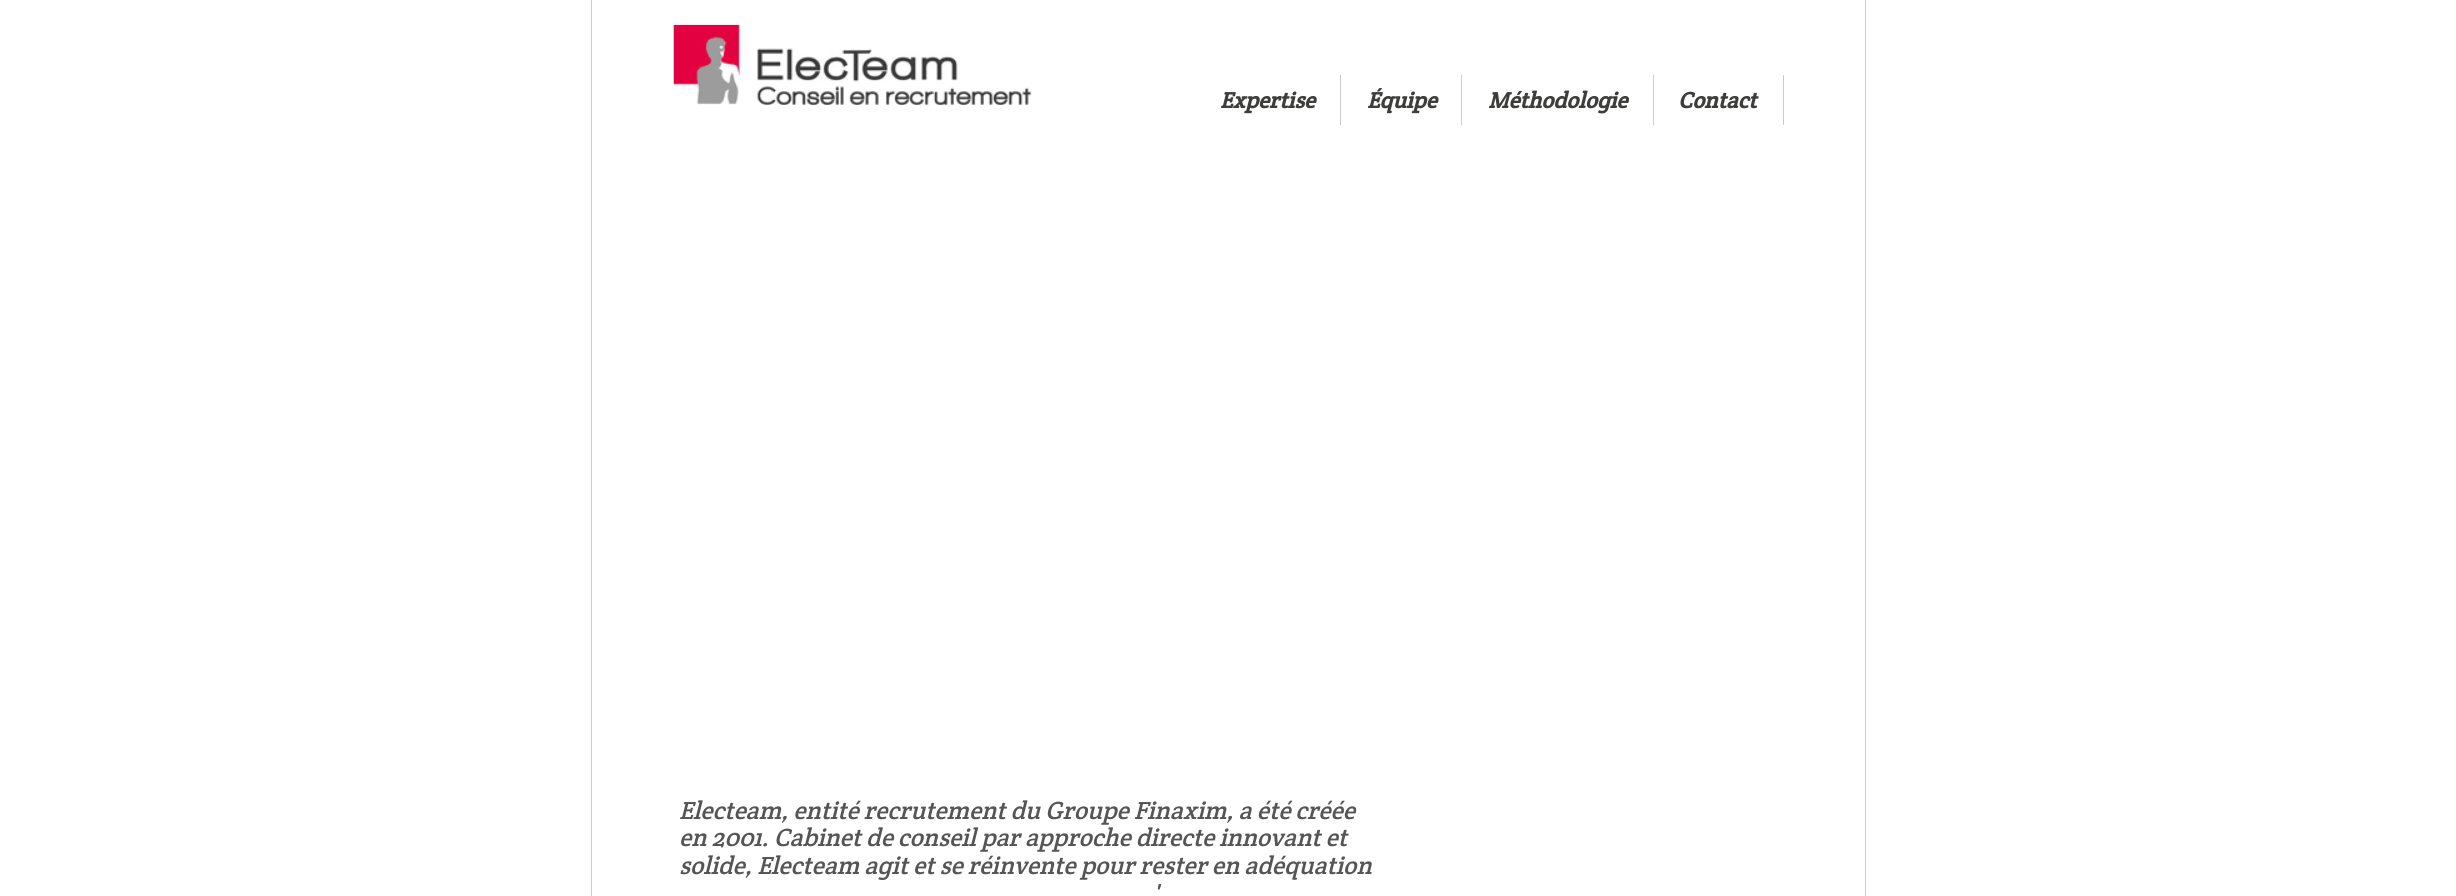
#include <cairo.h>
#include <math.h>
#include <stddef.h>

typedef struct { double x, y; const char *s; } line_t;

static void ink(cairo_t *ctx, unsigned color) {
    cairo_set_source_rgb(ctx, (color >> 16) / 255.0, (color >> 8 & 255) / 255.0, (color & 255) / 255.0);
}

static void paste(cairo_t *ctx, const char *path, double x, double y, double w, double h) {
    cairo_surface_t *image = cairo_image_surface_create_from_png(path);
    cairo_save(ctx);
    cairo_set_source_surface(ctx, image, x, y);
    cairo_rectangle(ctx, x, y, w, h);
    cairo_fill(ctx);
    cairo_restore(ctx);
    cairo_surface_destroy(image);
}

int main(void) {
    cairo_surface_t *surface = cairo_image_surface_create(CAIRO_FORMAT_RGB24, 2456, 896);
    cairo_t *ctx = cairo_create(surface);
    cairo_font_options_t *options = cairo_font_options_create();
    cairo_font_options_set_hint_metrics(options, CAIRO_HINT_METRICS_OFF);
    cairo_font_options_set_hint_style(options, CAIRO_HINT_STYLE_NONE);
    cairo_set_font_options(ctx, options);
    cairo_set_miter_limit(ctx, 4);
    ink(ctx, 0xFFFFFF);
    cairo_paint(ctx);
    ink(ctx, 0xCCCCCC);
    cairo_rectangle(ctx, 1865, 0, 1, 896);
    cairo_fill(ctx);
    cairo_rectangle(ctx, 591, 0, 1, 896);
    cairo_fill(ctx);
    paste(ctx, "media/1.png", 673, 25, 359, 80);
    cairo_rectangle(ctx, 1340, 75, 1, 50);
    cairo_fill(ctx);
    cairo_select_font_face(ctx, "Crete Round", CAIRO_FONT_SLANT_ITALIC, CAIRO_FONT_WEIGHT_BOLD);
    cairo_set_font_size(ctx, 22.5);
    ink(ctx, 0x3D3D3C);
    cairo_move_to(ctx, 1220, 108);
    cairo_show_text(ctx, "Expertise");
    ink(ctx, 0xCCCCCC);
    cairo_rectangle(ctx, 1461, 75, 1, 50);
    cairo_fill(ctx);
    ink(ctx, 0x3D3D3C);
    cairo_move_to(ctx, 1367, 108);
    cairo_show_text(ctx, "Équipe");
    ink(ctx, 0xCCCCCC);
    cairo_rectangle(ctx, 1653, 75, 1, 50);
    cairo_fill(ctx);
    ink(ctx, 0x3D3D3C);
    cairo_move_to(ctx, 1488, 108);
    cairo_show_text(ctx, "Méthodologie");
    ink(ctx, 0xCCCCCC);
    cairo_rectangle(ctx, 1783, 75, 1, 50);
    cairo_fill(ctx);
    ink(ctx, 0x3D3D3C);
    cairo_move_to(ctx, 1678, 108);
    cairo_show_text(ctx, "Contact");
    cairo_select_font_face(ctx, "Crete Round", CAIRO_FONT_SLANT_ITALIC, CAIRO_FONT_WEIGHT_NORMAL);
    cairo_set_font_size(ctx, 25);
    ink(ctx, 0x555555);
    {
        static const line_t items[] = {
            {679, 819, "Electeam, entité recrutement du Groupe Finaxim, a été créée"},
            {679, 846, "en 2001. Cabinet de conseil par approche directe innovant et"},
            {679, 874, "solide, Electeam agit et se réinvente pour rester en adéquation"},
            {1153, 901, "'"},
        };
        for (size_t i = 0; i < sizeof items / sizeof *items; i++) {
            cairo_move_to(ctx, items[i].x, items[i].y);
            cairo_show_text(ctx, items[i].s);
        }
    }
    cairo_surface_write_to_png(surface, "image.png");
    cairo_font_options_destroy(options);
    cairo_destroy(ctx);
    cairo_surface_destroy(surface);
    return 0;
}
